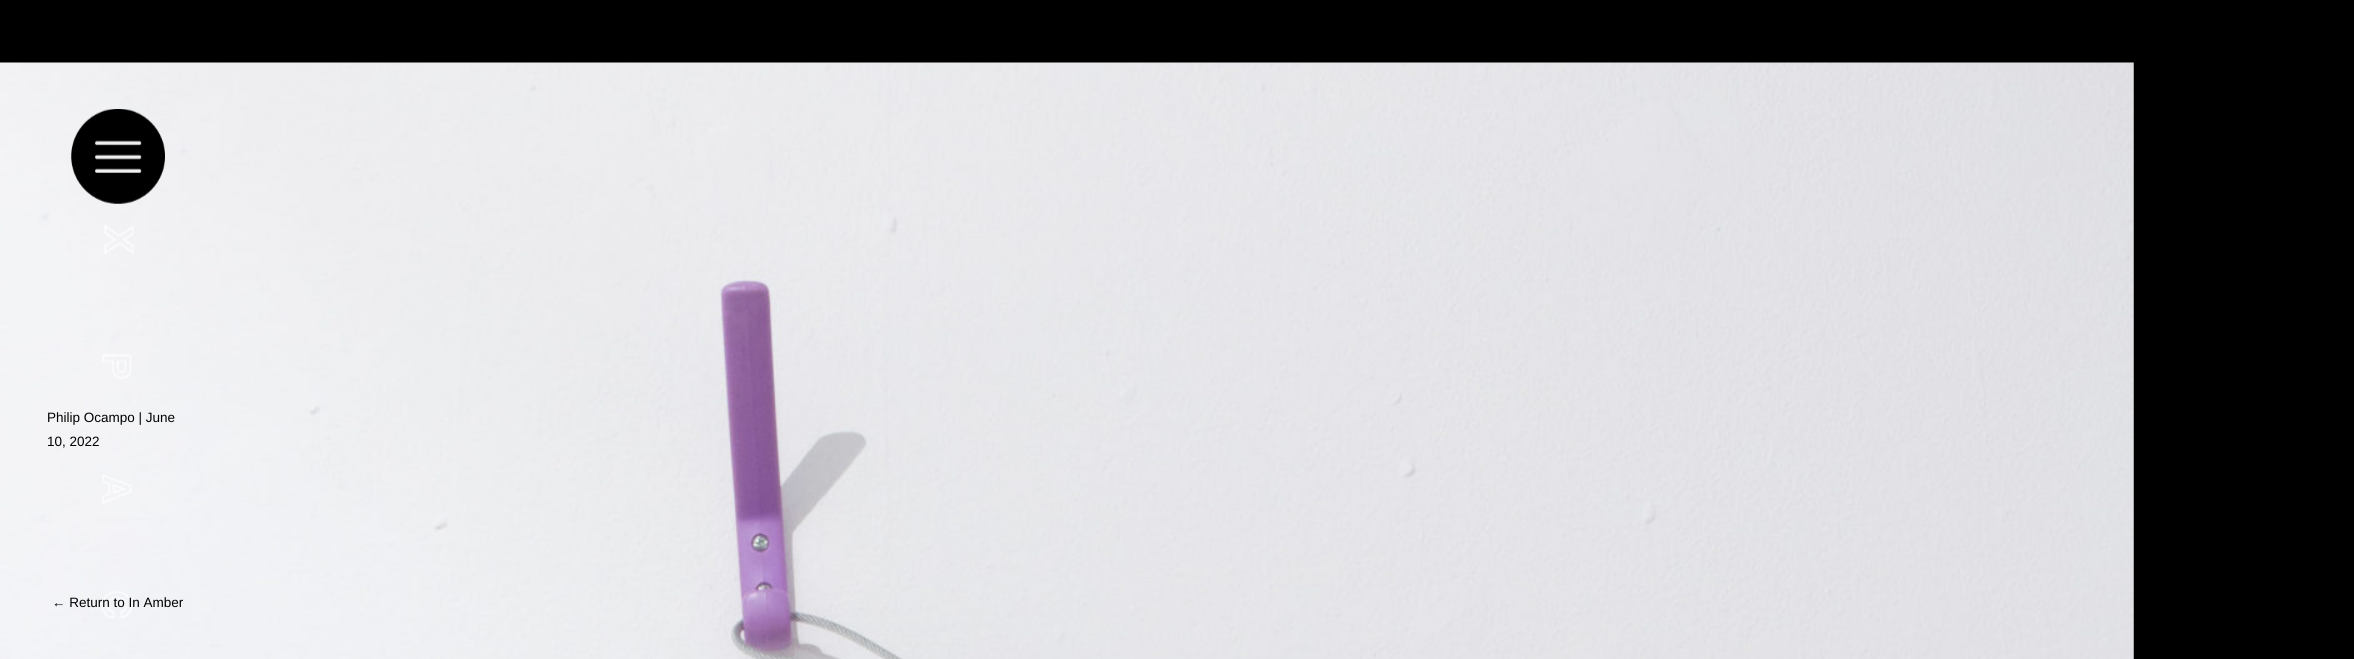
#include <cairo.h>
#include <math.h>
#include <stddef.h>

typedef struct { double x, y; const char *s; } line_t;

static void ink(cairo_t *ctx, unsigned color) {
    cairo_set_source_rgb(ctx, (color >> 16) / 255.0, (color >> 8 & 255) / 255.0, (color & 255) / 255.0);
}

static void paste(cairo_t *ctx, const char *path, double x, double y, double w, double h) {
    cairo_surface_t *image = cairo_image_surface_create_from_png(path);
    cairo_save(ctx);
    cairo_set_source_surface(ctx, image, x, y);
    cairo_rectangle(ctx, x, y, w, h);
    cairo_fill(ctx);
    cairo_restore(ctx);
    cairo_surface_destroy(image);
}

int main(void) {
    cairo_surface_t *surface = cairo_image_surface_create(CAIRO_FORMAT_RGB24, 2354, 659);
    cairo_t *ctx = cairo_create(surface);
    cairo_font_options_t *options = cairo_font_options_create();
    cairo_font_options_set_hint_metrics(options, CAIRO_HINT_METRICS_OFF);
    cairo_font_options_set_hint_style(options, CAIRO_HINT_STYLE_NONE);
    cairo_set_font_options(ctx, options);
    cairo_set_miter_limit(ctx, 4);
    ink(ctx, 0x000000);
    cairo_paint(ctx);
    paste(ctx, "media/3.png", 0, 62, 2134, 597);
    paste(ctx, "media/1.png", 71, 109, 94, 95);
    paste(ctx, "media/2.png", 101, 225, 33, 394);
    cairo_select_font_face(ctx, "Liberation Sans", CAIRO_FONT_SLANT_NORMAL, CAIRO_FONT_WEIGHT_NORMAL);
    cairo_set_font_size(ctx, 13.5);
    ink(ctx, 0x000000);
    {
        static const line_t items[] = {
            {47, 422, "Philip Ocampo | June"},
            {47, 446, "10, 2022"},
            {52, 607, "← Return to In Amber"},
        };
        for (size_t i = 0; i < sizeof items / sizeof *items; i++) {
            cairo_move_to(ctx, items[i].x, items[i].y);
            cairo_show_text(ctx, items[i].s);
        }
    }
    cairo_surface_write_to_png(surface, "image.png");
    cairo_font_options_destroy(options);
    cairo_destroy(ctx);
    cairo_surface_destroy(surface);
    return 0;
}
